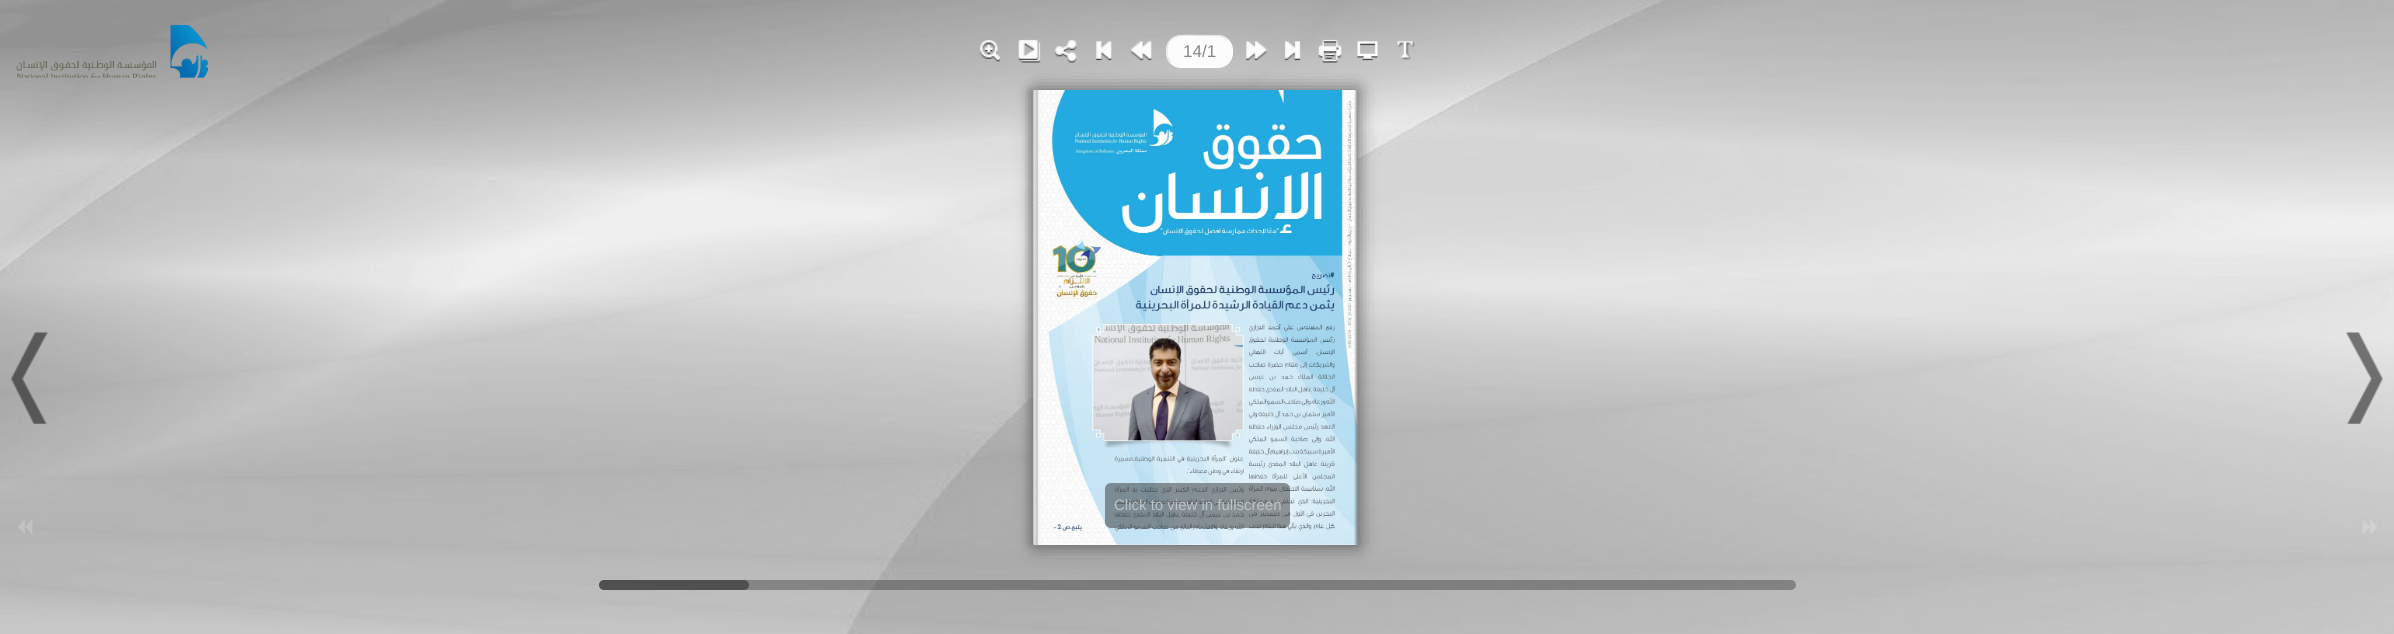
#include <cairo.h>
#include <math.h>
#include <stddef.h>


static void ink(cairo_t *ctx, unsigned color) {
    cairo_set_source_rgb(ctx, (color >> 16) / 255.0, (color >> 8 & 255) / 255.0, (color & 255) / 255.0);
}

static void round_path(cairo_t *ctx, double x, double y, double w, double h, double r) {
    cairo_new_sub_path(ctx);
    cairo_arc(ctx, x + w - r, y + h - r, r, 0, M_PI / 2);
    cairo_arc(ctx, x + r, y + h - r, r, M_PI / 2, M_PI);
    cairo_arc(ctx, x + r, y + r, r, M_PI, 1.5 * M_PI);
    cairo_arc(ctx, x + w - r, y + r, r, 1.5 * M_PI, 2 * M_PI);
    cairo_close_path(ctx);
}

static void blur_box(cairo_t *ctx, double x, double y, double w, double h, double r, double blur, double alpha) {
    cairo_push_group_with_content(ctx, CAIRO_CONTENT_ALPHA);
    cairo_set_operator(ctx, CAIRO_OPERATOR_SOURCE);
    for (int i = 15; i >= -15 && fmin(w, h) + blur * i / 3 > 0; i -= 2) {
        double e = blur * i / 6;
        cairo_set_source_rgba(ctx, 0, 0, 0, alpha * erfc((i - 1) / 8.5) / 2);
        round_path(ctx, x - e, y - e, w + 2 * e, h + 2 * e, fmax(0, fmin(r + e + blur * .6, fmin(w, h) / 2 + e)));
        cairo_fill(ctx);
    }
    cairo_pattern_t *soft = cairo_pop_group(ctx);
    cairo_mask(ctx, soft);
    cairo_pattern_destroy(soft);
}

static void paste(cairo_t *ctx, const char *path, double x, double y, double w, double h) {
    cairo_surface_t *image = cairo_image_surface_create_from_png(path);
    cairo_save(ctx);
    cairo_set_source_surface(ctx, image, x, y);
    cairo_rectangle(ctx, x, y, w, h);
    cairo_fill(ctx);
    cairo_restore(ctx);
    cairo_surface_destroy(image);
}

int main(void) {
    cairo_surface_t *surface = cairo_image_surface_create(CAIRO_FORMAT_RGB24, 2394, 634);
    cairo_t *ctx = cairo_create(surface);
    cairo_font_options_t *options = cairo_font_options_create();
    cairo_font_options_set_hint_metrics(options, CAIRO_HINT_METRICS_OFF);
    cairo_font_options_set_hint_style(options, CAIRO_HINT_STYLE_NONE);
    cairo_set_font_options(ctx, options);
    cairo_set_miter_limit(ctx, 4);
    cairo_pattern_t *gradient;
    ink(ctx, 0xFFFFFF);
    cairo_paint(ctx);
    paste(ctx, "media/1.png", 0, 0, 2394, 634);
    paste(ctx, "media/2.png", 16, 25, 193, 53);
    paste(ctx, "media/3.png", 979, 40, 22, 22);
    ink(ctx, 0x282828);
    blur_box(ctx, 1036, 90, 322, 455, 0, 9.5, 0.7);
    paste(ctx, "media/4.png", 1018, 39, 23, 24);
    paste(ctx, "media/5.png", 1055, 40, 22, 23);
    paste(ctx, "media/6.png", 1096, 41, 16, 20);
    paste(ctx, "media/7.png", 1131, 41, 21, 20);
    cairo_set_source_rgba(ctx, 1, 1, 1, 0.95);
    round_path(ctx, 1166, 35, 67, 33, 15);
    cairo_fill(ctx);
    cairo_new_path(ctx);
    cairo_move_to(ctx, 1227.5, 40);
    cairo_curve_to(ctx, 1231, 43.5, 1232, 47.5, 1232, 52.5);
    cairo_curve_to(ctx, 1231.5, 70.5, 1211, 67, 1199.5, 67);
    cairo_line_to(ctx, 1187.5, 67);
    cairo_curve_to(ctx, 1181, 67, 1175.5, 67, 1171, 62.5);
    ink(ctx, 0xFFFFFF);
    cairo_set_line_width(ctx, 1.2);
    cairo_stroke(ctx);
    cairo_new_path(ctx);
    cairo_move_to(ctx, 1171, 62.5);
    cairo_curve_to(ctx, 1167.5, 59, 1167, 55, 1167, 50);
    cairo_curve_to(ctx, 1167, 32, 1187.5, 35.5, 1199.5, 35.5);
    cairo_line_to(ctx, 1211.5, 35.5);
    cairo_curve_to(ctx, 1217.5, 35.5, 1223, 35.5, 1227.5, 40);
    cairo_set_source_rgba(ctx, 0.894, 0.894, 0.894, 0.95);
    cairo_stroke(ctx);
    cairo_select_font_face(ctx, "Liberation Sans", CAIRO_FONT_SLANT_NORMAL, CAIRO_FONT_WEIGHT_NORMAL);
    cairo_set_font_size(ctx, 17);
    ink(ctx, 0x868686);
    cairo_move_to(ctx, 1183, 57);
    cairo_show_text(ctx, "14/1");
    paste(ctx, "media/8.png", 1246, 41, 21, 20);
    paste(ctx, "media/9.png", 1284, 41, 17, 20);
    paste(ctx, "media/10.png", 1318, 39, 24, 24);
    paste(ctx, "media/11.png", 1357, 41, 21, 20);
    paste(ctx, "media/12.png", 1397, 41, 18, 19);
    paste(ctx, "media/13.png", 11, 332, 37, 92);
    paste(ctx, "media/14.png", 2346, 332, 37, 92);
    ink(ctx, 0xFFFFFF);
    cairo_rectangle(ctx, 1038, 90, 320, 455);
    cairo_fill(ctx);
    paste(ctx, "media/16.png", 1038, 90, 320, 455);
    ink(ctx, 0x7D7D7D);
    blur_box(ctx, 1029, 90, 5, 455, 0, 3.5, 0.7);
    ink(ctx, 0xCCCCCC);
    cairo_rectangle(ctx, 1034, 90, 4, 455);
    cairo_fill(ctx);
    paste(ctx, "media/15.png", 1033, 90, 3, 455);
    gradient = cairo_pattern_create_linear(1358, 318, 1354, 318);
    cairo_pattern_add_color_stop_rgba(gradient, 0, 0.078, 0.078, 0.078, 0.5);
    cairo_pattern_add_color_stop_rgba(gradient, 1, 0.078, 0.078, 0.078, 0);
    cairo_set_source(ctx, gradient);
    cairo_pattern_destroy(gradient);
    cairo_rectangle(ctx, 1354, 90, 4, 455);
    cairo_fill(ctx);
    cairo_set_source_rgba(ctx, 0.2, 0.2, 0.2, 0.5);
    round_path(ctx, 1105, 483, 185, 45, 6);
    cairo_fill(ctx);
    cairo_set_font_size(ctx, 15);
    ink(ctx, 0xBFC4C7);
    cairo_move_to(ctx, 1114, 510);
    cairo_show_text(ctx, "Click to view in fullscreen");
    paste(ctx, "media/17.png", 17, 520, 16, 14);
    paste(ctx, "media/18.png", 2362, 520, 16, 14);
    cairo_set_source_rgba(ctx, 0, 0, 0, 0.3);
    round_path(ctx, 599, 580, 1197, 10, 5);
    cairo_fill(ctx);
    cairo_set_source_rgba(ctx, 0, 0, 0, 0.4);
    round_path(ctx, 599, 580, 150, 10, 5);
    cairo_fill(ctx);
    cairo_surface_write_to_png(surface, "image.png");
    cairo_font_options_destroy(options);
    cairo_destroy(ctx);
    cairo_surface_destroy(surface);
    return 0;
}
